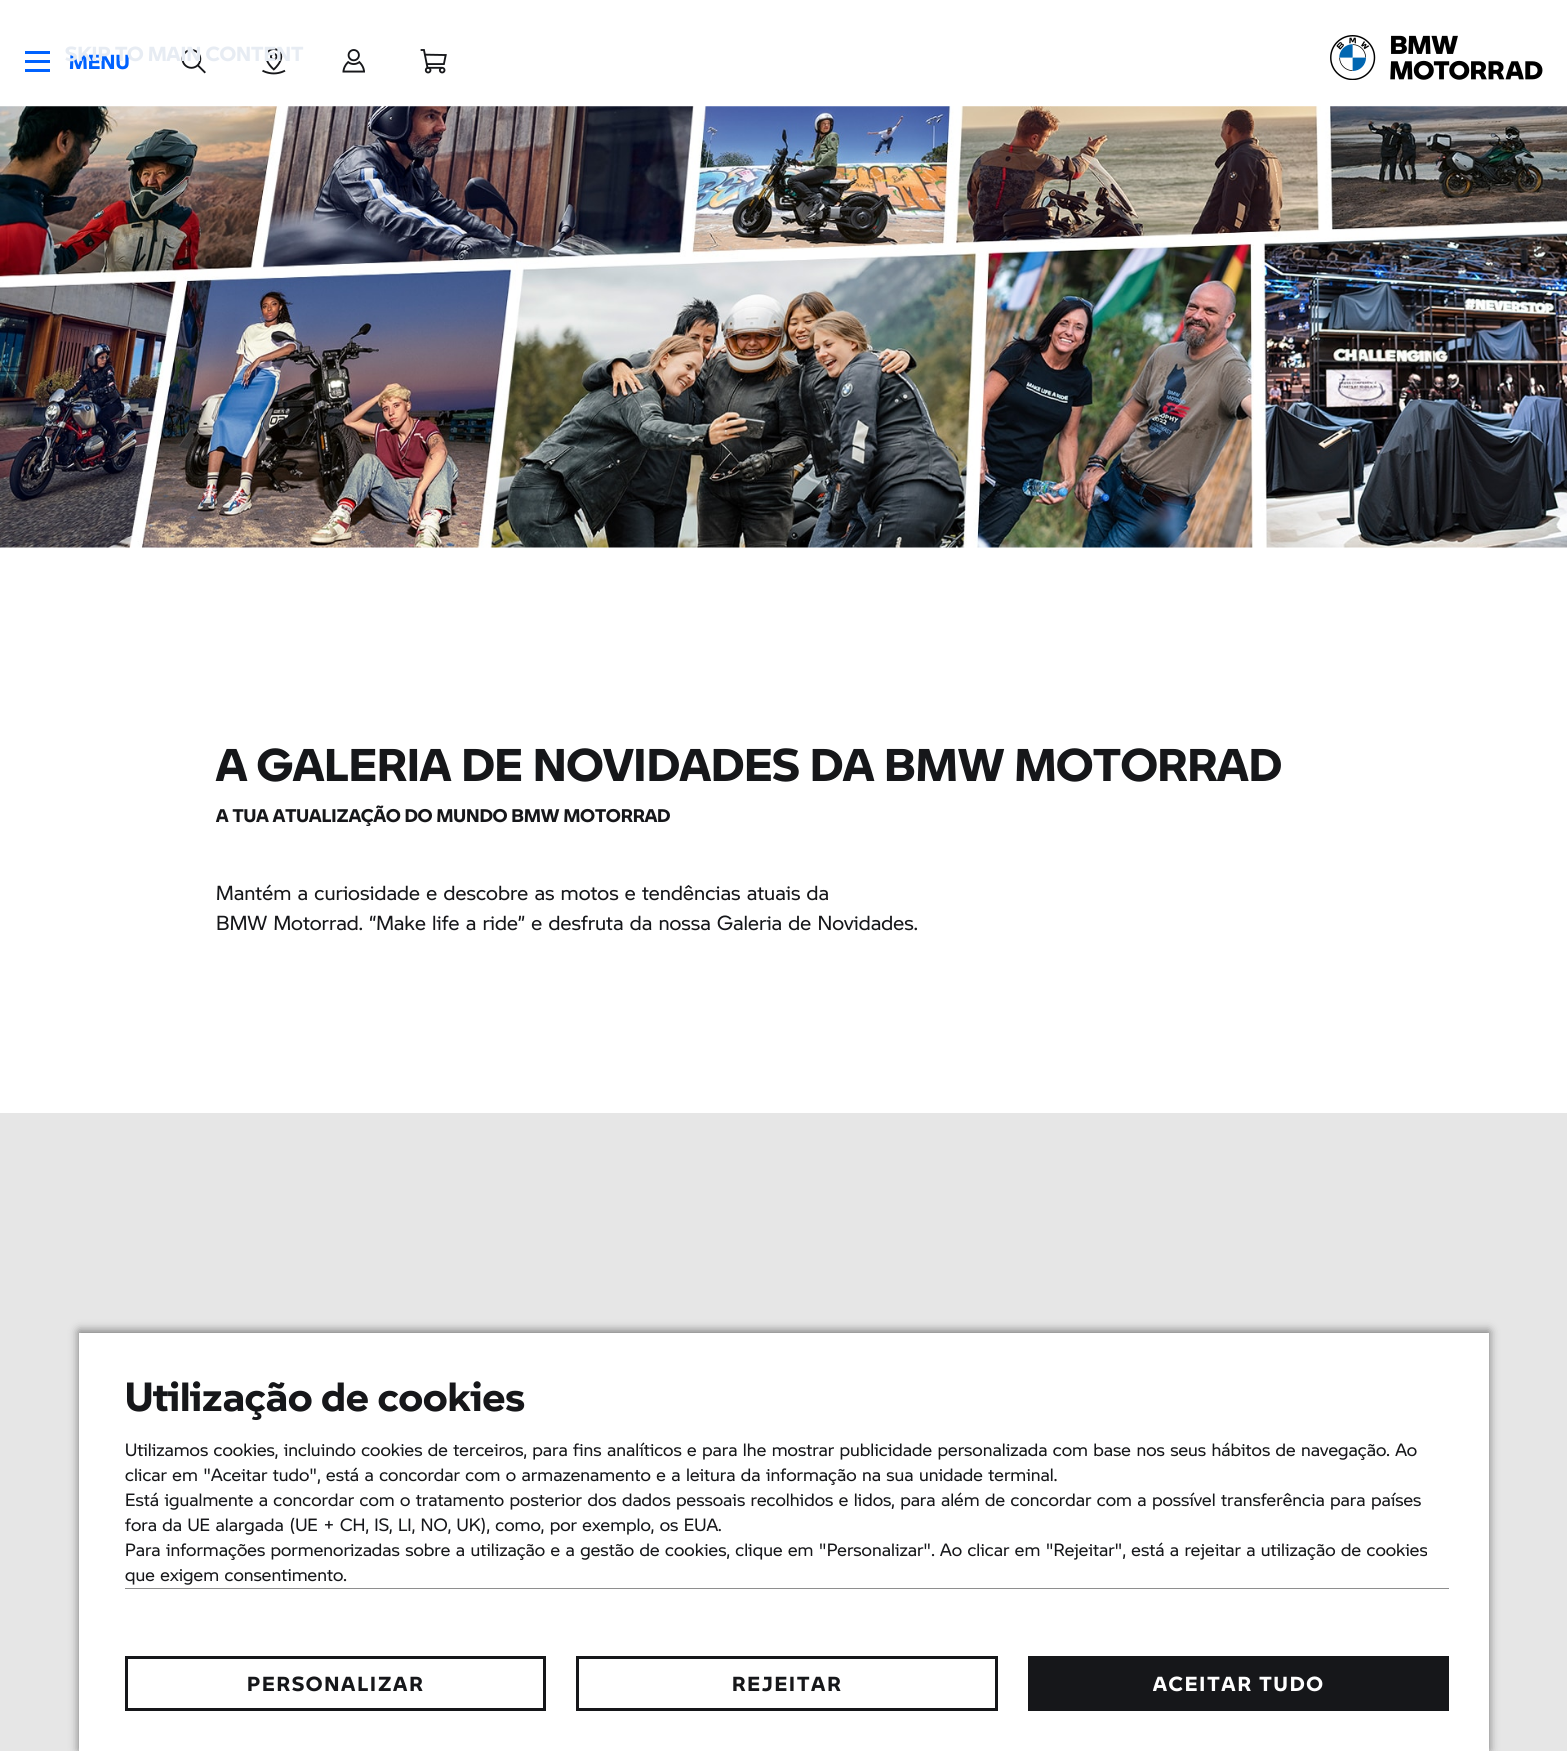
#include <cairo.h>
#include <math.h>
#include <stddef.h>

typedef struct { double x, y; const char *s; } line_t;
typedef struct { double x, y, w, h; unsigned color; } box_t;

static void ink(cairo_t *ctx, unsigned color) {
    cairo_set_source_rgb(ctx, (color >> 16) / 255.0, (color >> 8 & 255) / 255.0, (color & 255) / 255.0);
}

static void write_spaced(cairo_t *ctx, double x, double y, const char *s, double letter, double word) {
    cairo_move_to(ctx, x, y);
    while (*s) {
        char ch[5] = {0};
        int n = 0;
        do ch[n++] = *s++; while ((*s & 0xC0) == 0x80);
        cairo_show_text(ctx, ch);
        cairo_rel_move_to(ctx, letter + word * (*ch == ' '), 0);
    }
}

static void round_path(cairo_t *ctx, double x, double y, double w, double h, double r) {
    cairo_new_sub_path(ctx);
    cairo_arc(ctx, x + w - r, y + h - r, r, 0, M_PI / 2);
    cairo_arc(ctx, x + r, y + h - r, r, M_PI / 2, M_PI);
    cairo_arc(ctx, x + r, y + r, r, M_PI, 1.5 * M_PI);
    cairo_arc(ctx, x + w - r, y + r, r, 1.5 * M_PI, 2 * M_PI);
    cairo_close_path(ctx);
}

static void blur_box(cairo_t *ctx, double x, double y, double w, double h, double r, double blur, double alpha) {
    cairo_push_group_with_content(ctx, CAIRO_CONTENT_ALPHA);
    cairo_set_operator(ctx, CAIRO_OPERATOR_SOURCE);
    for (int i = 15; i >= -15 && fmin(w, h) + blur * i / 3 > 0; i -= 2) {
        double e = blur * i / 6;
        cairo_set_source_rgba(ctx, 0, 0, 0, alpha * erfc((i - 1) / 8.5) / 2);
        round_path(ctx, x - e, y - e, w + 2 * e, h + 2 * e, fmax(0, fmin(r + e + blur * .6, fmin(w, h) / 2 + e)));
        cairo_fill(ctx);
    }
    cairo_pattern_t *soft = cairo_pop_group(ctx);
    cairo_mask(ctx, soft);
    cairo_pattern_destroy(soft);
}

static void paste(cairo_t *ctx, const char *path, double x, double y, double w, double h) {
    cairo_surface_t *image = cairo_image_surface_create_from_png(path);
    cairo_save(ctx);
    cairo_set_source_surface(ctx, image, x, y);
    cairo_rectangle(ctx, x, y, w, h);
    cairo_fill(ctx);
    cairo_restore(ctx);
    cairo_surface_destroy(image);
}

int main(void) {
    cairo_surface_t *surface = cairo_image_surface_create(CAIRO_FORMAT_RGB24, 1567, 1751);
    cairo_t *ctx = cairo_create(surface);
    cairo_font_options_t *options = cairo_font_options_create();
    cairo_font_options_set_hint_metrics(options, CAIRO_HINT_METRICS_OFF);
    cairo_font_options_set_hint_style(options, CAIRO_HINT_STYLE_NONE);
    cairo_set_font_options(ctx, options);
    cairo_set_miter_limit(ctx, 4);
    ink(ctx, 0xFFFFFF);
    cairo_paint(ctx);
    cairo_select_font_face(ctx, "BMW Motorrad", CAIRO_FONT_SLANT_NORMAL, CAIRO_FONT_WEIGHT_BOLD);
    cairo_set_font_size(ctx, 20);
    ink(ctx, 0x0062FF);
    cairo_move_to(ctx, 69, 69);
    cairo_show_text(ctx, "MENU");
    paste(ctx, "media/1.png", 181, 49, 25, 25);
    paste(ctx, "media/2.png", 262, 48, 24, 27);
    ink(ctx, 0xE7ECF3);
    cairo_move_to(ctx, 65, 61);
    cairo_show_text(ctx, "SKIP TO MAIN CONTENT");
    {
        static const box_t items[] = {
            {25, 51, 25, 3, 0x0062FF},
            {25, 60, 25, 3, 0x0062FF},
            {25, 69, 25, 3, 0x0062FF},
        };
        for (size_t i = 0; i < sizeof items / sizeof *items; i++) {
            ink(ctx, items[i].color);
            cairo_rectangle(ctx, items[i].x, items[i].y, items[i].w, items[i].h);
            cairo_fill(ctx);
        }
    }
    paste(ctx, "media/3.png", 342, 49, 23, 24);
    paste(ctx, "media/4.png", 420, 49, 27, 25);
    paste(ctx, "media/5.png", 1330, 35, 213, 45);
    paste(ctx, "media/6.png", 0, 106, 1567, 442);
    cairo_set_font_size(ctx, 45);
    ink(ctx, 0x16171A);
    cairo_move_to(ctx, 216, 781);
    cairo_show_text(ctx, "A GALERIA DE NOVIDADES DA BMW MOTORRAD");
    cairo_set_font_size(ctx, 18);
    cairo_move_to(ctx, 216, 822);
    cairo_show_text(ctx, "A TUA ATUALIZAÇÃO DO MUNDO BMW MOTORRAD");
    cairo_select_font_face(ctx, "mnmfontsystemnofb", CAIRO_FONT_SLANT_NORMAL, CAIRO_FONT_WEIGHT_NORMAL);
    cairo_set_font_size(ctx, 20);
    cairo_move_to(ctx, 216, 900);
    cairo_show_text(ctx, "Mantém a curiosidade e descobre as motos e tendências atuais da");
    cairo_move_to(ctx, 216, 930);
    cairo_show_text(ctx, "BMW Motorrad. “Make life a ride” e desfruta da nossa Galeria de Novidades.");
    ink(ctx, 0xE6E6E6);
    cairo_rectangle(ctx, 0, 1113, 1567, 638);
    cairo_fill(ctx);
    ink(ctx, 0x000000);
    blur_box(ctx, 79, 1331, 1410, 419, 0, 5, 0.5);
    ink(ctx, 0xFFFFFF);
    cairo_rectangle(ctx, 79, 1333, 1410, 418);
    cairo_fill(ctx);
    cairo_select_font_face(ctx, "BMW Motorrad", CAIRO_FONT_SLANT_NORMAL, CAIRO_FONT_WEIGHT_BOLD);
    cairo_set_font_size(ctx, 40);
    ink(ctx, 0x16171A);
    cairo_move_to(ctx, 125, 1411);
    cairo_show_text(ctx, "Utilização de cookies");
    cairo_select_font_face(ctx, "mnmfontsystemnofb", CAIRO_FONT_SLANT_NORMAL, CAIRO_FONT_WEIGHT_NORMAL);
    cairo_set_font_size(ctx, 17.5);
    {
        static const line_t items[] = {
            {125, 1456, "Utilizamos cookies, incluindo cookies de terceiros, para fins analíticos e para lhe mostrar publicidade personalizada com base nos seus hábitos de navegação. Ao"},
            {125, 1481, "clicar em \"Aceitar tudo\", está a concordar com o armazenamento e a leitura da informação na sua unidade terminal."},
            {125, 1506, "Está igualmente a concordar com o tratamento posterior dos dados pessoais recolhidos e lidos, para além de concordar com a possível transferência para países"},
            {125, 1531, "fora da UE alargada (UE + CH, IS, LI, NO, UK), como, por exemplo, os EUA."},
            {125, 1556, "Para informações pormenorizadas sobre a utilização e a gestão de cookies, clique em \"Personalizar\". Ao clicar em \"Rejeitar\", está a rejeitar a utilização de cookies"},
            {125, 1581, "que exigem consentimento."},
        };
        for (size_t i = 0; i < sizeof items / sizeof *items; i++) {
            cairo_move_to(ctx, items[i].x, items[i].y);
            cairo_show_text(ctx, items[i].s);
        }
    }
    ink(ctx, 0x8E8E8E);
    cairo_rectangle(ctx, 125, 1588, 1324, 1);
    cairo_fill(ctx);
    cairo_rectangle(ctx, 126.5, 1657.5, 418, 52);
    ink(ctx, 0x16171A);
    cairo_set_line_width(ctx, 3);
    cairo_stroke(ctx);
    cairo_select_font_face(ctx, "BMW Motorrad", CAIRO_FONT_SLANT_NORMAL, CAIRO_FONT_WEIGHT_BOLD);
    cairo_set_font_size(ctx, 20);
    write_spaced(ctx, 247, 1691, "PERSONALIZAR", 2, 0);
    cairo_rectangle(ctx, 577.5, 1657.5, 419, 52);
    cairo_stroke(ctx);
    write_spaced(ctx, 732, 1691, "REJEITAR", 2, 0);
    cairo_rectangle(ctx, 1028, 1656, 421, 55);
    cairo_fill(ctx);
    ink(ctx, 0xFFFFFF);
    write_spaced(ctx, 1153, 1691, "ACEITAR TUDO", 2, 0);
    cairo_surface_write_to_png(surface, "image.png");
    cairo_font_options_destroy(options);
    cairo_destroy(ctx);
    cairo_surface_destroy(surface);
    return 0;
}
